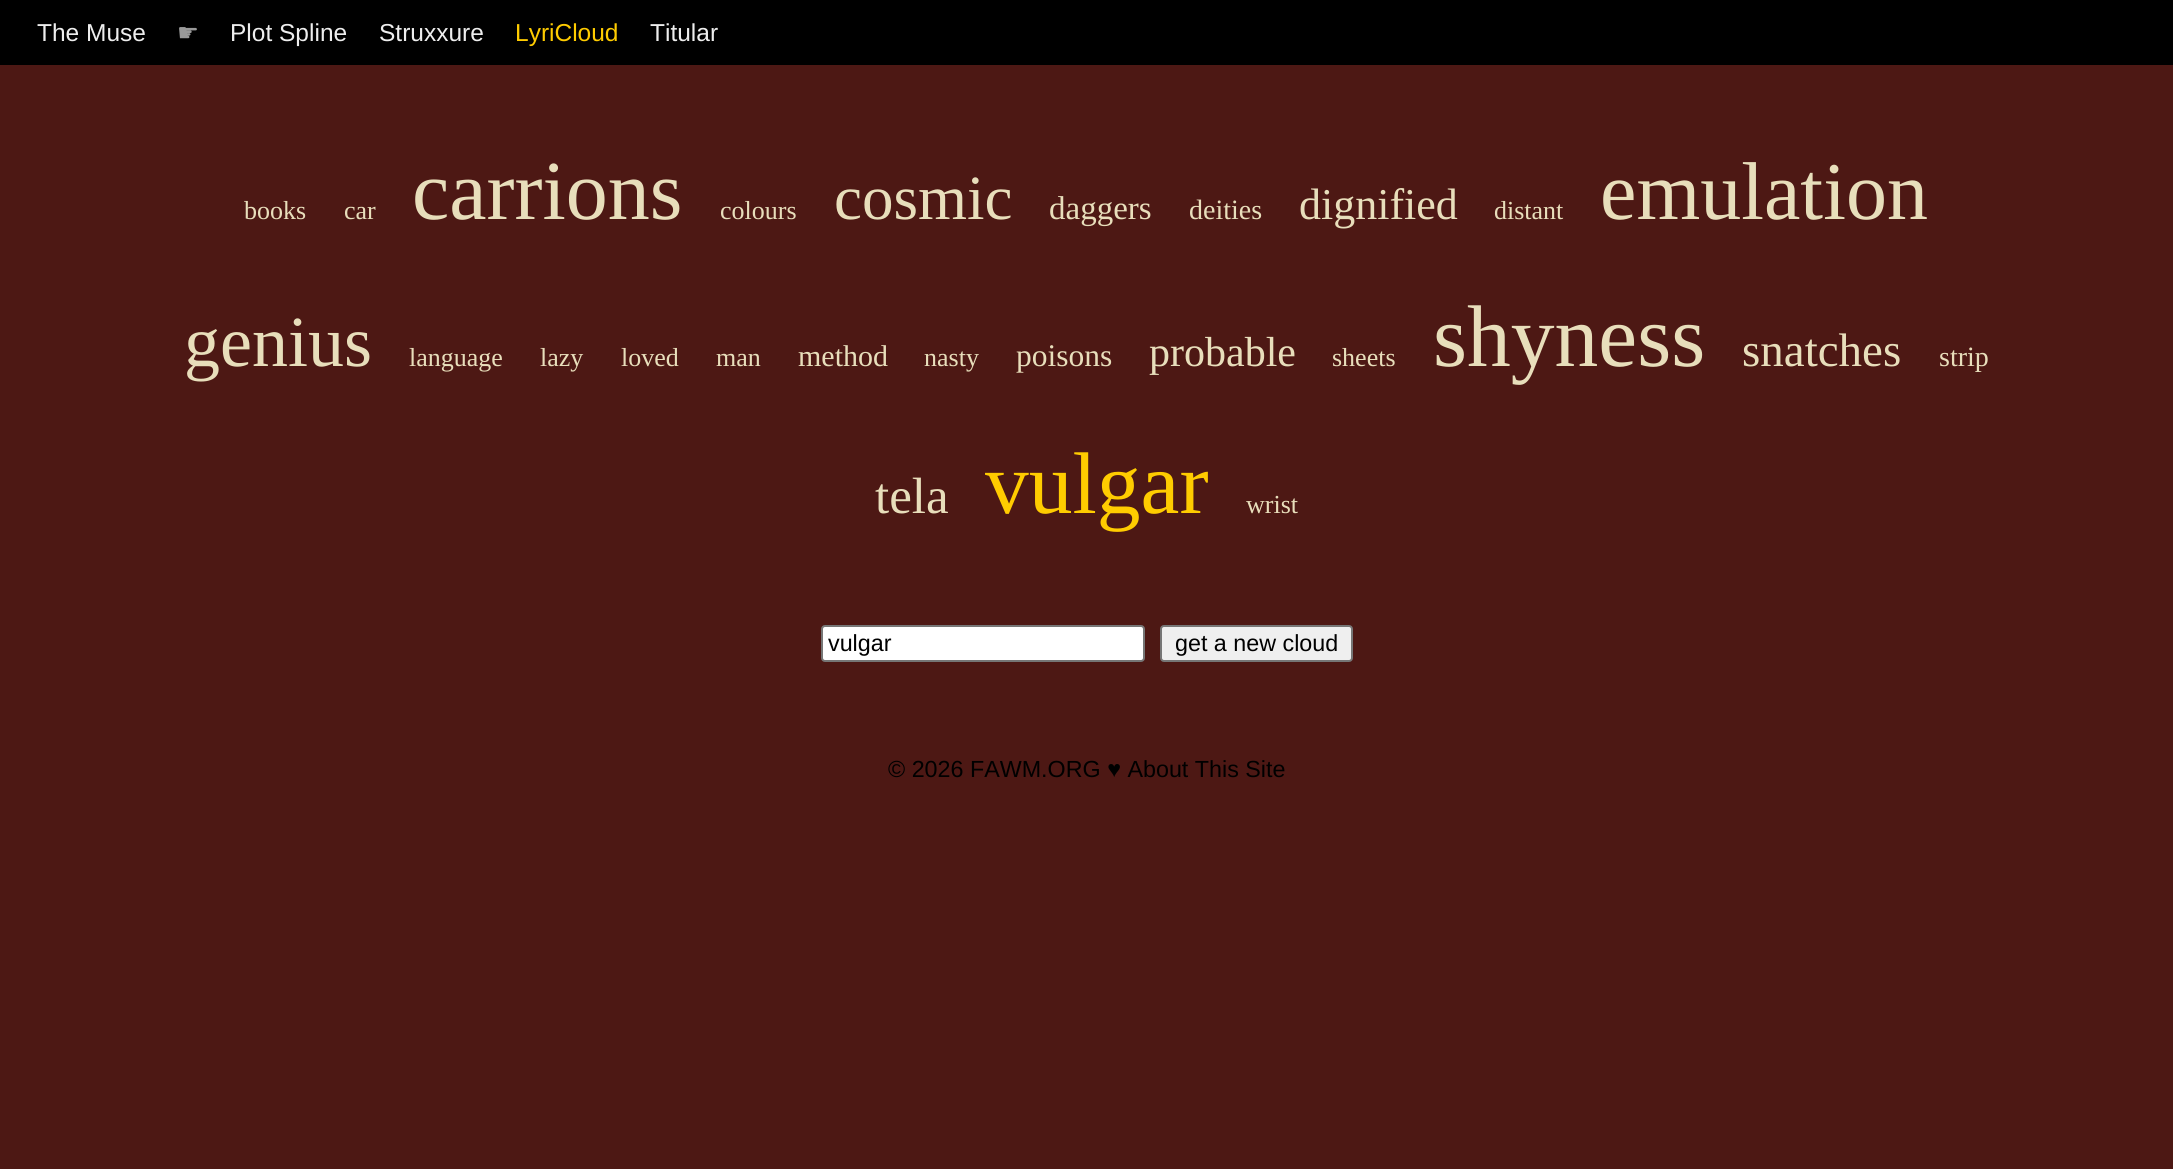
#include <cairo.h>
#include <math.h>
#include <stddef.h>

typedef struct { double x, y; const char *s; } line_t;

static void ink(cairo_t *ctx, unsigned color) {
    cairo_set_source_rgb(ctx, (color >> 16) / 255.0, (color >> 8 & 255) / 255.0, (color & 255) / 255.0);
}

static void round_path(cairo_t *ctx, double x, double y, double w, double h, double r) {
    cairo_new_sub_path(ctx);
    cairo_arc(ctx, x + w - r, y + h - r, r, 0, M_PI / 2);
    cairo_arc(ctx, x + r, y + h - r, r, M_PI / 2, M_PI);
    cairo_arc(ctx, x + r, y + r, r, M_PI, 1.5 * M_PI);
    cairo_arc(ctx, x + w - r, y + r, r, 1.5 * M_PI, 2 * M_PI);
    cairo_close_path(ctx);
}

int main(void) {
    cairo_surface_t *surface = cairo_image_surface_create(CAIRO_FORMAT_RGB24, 2173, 1169);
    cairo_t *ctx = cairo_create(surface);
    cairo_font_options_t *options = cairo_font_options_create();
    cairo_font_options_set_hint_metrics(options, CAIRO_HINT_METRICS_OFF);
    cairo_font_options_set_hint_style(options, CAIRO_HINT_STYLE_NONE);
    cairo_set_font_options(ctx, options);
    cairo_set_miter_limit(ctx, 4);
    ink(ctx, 0x4D1814);
    cairo_paint(ctx);
    ink(ctx, 0x000000);
    cairo_rectangle(ctx, 0, 0, 2173, 65);
    cairo_fill(ctx);
    cairo_select_font_face(ctx, "Liberation Sans", CAIRO_FONT_SLANT_NORMAL, CAIRO_FONT_WEIGHT_NORMAL);
    cairo_set_font_size(ctx, 24.5);
    ink(ctx, 0xEEEEEE);
    cairo_move_to(ctx, 37, 41);
    cairo_show_text(ctx, "The Muse");
    cairo_select_font_face(ctx, "DejaVu Sans", CAIRO_FONT_SLANT_NORMAL, CAIRO_FONT_WEIGHT_NORMAL);
    ink(ctx, 0x999999);
    cairo_move_to(ctx, 177, 41);
    cairo_show_text(ctx, "☛");
    cairo_select_font_face(ctx, "Liberation Sans", CAIRO_FONT_SLANT_NORMAL, CAIRO_FONT_WEIGHT_NORMAL);
    ink(ctx, 0xEEEEEE);
    cairo_move_to(ctx, 230, 41);
    cairo_show_text(ctx, "Plot Spline");
    cairo_move_to(ctx, 379, 41);
    cairo_show_text(ctx, "Struxxure");
    ink(ctx, 0xFFCC00);
    cairo_move_to(ctx, 515, 41);
    cairo_show_text(ctx, "LyriCloud");
    ink(ctx, 0xEEEEEE);
    cairo_move_to(ctx, 650, 41);
    cairo_show_text(ctx, "Titular");
    cairo_select_font_face(ctx, "Liberation Serif", CAIRO_FONT_SLANT_NORMAL, CAIRO_FONT_WEIGHT_NORMAL);
    cairo_set_font_size(ctx, 26);
    ink(ctx, 0xE8DEBB);
    cairo_move_to(ctx, 244, 219);
    cairo_show_text(ctx, "books");
    cairo_move_to(ctx, 344, 219);
    cairo_show_text(ctx, "car");
    cairo_set_font_size(ctx, 84);
    cairo_move_to(ctx, 412, 219);
    cairo_show_text(ctx, "carrions");
    cairo_set_font_size(ctx, 26);
    cairo_move_to(ctx, 720, 219);
    cairo_show_text(ctx, "colours");
    cairo_set_font_size(ctx, 63);
    cairo_move_to(ctx, 834, 219);
    cairo_show_text(ctx, "cosmic");
    cairo_set_font_size(ctx, 33);
    cairo_move_to(ctx, 1049, 219);
    cairo_show_text(ctx, "daggers");
    cairo_set_font_size(ctx, 28);
    cairo_move_to(ctx, 1189, 219);
    cairo_show_text(ctx, "deities");
    cairo_set_font_size(ctx, 44);
    cairo_move_to(ctx, 1299, 219);
    cairo_show_text(ctx, "dignified");
    cairo_set_font_size(ctx, 26);
    cairo_move_to(ctx, 1494, 219);
    cairo_show_text(ctx, "distant");
    cairo_set_font_size(ctx, 82);
    cairo_move_to(ctx, 1600, 219);
    cairo_show_text(ctx, "emulation");
    cairo_set_font_size(ctx, 72);
    cairo_move_to(ctx, 184, 366);
    cairo_show_text(ctx, "genius");
    cairo_set_font_size(ctx, 26);
    {
        static const line_t items[] = {
            {409, 366, "language"},
            {540, 366, "lazy"},
            {621, 366, "loved"},
            {716, 366, "man"},
        };
        for (size_t i = 0; i < sizeof items / sizeof *items; i++) {
            cairo_move_to(ctx, items[i].x, items[i].y);
            cairo_show_text(ctx, items[i].s);
        }
    }
    cairo_set_font_size(ctx, 30);
    cairo_move_to(ctx, 798, 366);
    cairo_show_text(ctx, "method");
    cairo_set_font_size(ctx, 26);
    cairo_move_to(ctx, 924, 366);
    cairo_show_text(ctx, "nasty");
    cairo_set_font_size(ctx, 31.5);
    cairo_move_to(ctx, 1016, 366);
    cairo_show_text(ctx, "poisons");
    cairo_set_font_size(ctx, 42);
    cairo_move_to(ctx, 1149, 366);
    cairo_show_text(ctx, "probable");
    cairo_set_font_size(ctx, 26);
    cairo_move_to(ctx, 1332, 366);
    cairo_show_text(ctx, "sheets");
    cairo_set_font_size(ctx, 87.5);
    cairo_move_to(ctx, 1433, 366);
    cairo_show_text(ctx, "shyness");
    cairo_set_font_size(ctx, 47);
    cairo_move_to(ctx, 1742, 366);
    cairo_show_text(ctx, "snatches");
    cairo_set_font_size(ctx, 28);
    cairo_move_to(ctx, 1939, 366);
    cairo_show_text(ctx, "strip");
    cairo_set_font_size(ctx, 51);
    cairo_move_to(ctx, 875, 513);
    cairo_show_text(ctx, "tela");
    cairo_set_font_size(ctx, 87.5);
    ink(ctx, 0xFFCC00);
    cairo_move_to(ctx, 985, 513);
    cairo_show_text(ctx, "vulgar");
    cairo_set_font_size(ctx, 26);
    ink(ctx, 0xE8DEBB);
    cairo_move_to(ctx, 1246, 513);
    cairo_show_text(ctx, "wrist");
    ink(ctx, 0xFFFFFF);
    round_path(ctx, 822, 626, 322, 35, 3);
    cairo_fill_preserve(ctx);
    ink(ctx, 0x767676);
    cairo_stroke(ctx);
    cairo_select_font_face(ctx, "Liberation Sans", CAIRO_FONT_SLANT_NORMAL, CAIRO_FONT_WEIGHT_NORMAL);
    cairo_set_font_size(ctx, 23.3);
    ink(ctx, 0x000000);
    cairo_move_to(ctx, 828, 651);
    cairo_show_text(ctx, "vulgar");
    ink(ctx, 0xEFEFEF);
    round_path(ctx, 1161, 626, 191, 35, 3);
    cairo_fill_preserve(ctx);
    ink(ctx, 0x767676);
    cairo_stroke(ctx);
    ink(ctx, 0x000000);
    cairo_move_to(ctx, 1175, 651);
    cairo_show_text(ctx, "get a new cloud");
    cairo_move_to(ctx, 888, 777);
    cairo_show_text(ctx, "© 2026 FAWM.ORG ♥ About This Site");
    cairo_surface_write_to_png(surface, "image.png");
    cairo_font_options_destroy(options);
    cairo_destroy(ctx);
    cairo_surface_destroy(surface);
    return 0;
}
